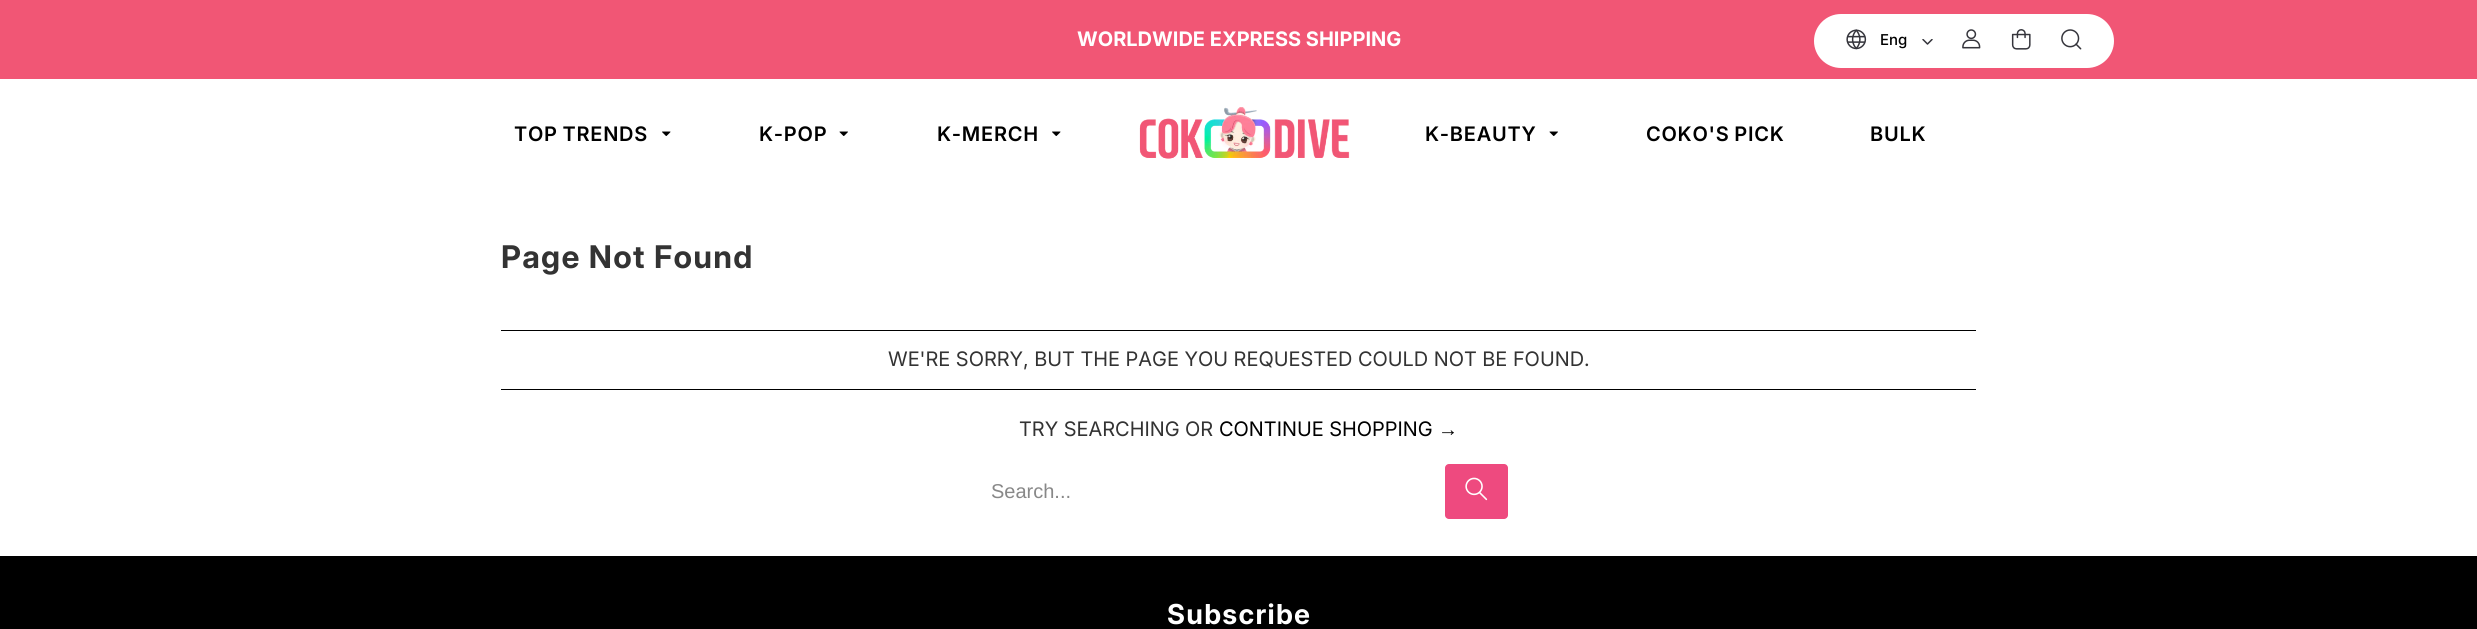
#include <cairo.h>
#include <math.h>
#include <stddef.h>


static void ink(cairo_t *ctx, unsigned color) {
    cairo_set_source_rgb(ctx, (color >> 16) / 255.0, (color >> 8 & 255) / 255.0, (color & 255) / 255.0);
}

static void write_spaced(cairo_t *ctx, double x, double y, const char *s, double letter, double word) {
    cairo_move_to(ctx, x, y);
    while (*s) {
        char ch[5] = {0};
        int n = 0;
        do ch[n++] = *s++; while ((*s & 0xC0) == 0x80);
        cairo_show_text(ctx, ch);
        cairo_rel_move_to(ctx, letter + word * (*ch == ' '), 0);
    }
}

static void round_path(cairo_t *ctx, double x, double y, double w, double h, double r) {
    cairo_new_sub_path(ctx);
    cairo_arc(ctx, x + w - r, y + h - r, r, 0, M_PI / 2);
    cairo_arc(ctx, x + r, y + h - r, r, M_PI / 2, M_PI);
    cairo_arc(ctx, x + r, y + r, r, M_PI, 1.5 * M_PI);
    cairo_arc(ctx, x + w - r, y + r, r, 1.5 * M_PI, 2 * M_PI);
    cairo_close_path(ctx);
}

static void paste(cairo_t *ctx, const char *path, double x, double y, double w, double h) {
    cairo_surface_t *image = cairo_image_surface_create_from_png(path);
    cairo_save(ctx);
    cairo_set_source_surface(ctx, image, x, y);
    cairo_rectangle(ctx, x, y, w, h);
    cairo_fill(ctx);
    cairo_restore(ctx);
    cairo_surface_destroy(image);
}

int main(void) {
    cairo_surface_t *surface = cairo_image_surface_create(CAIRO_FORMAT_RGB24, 2477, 629);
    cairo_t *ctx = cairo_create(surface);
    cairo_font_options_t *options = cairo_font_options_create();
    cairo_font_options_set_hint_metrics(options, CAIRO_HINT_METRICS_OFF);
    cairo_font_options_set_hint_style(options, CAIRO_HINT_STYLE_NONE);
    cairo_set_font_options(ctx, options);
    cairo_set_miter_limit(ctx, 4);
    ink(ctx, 0xFFFFFF);
    cairo_paint(ctx);
    ink(ctx, 0xF15675);
    cairo_rectangle(ctx, 0, 0, 2477, 79);
    cairo_fill(ctx);
    cairo_select_font_face(ctx, "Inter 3", CAIRO_FONT_SLANT_NORMAL, CAIRO_FONT_WEIGHT_BOLD);
    cairo_set_font_size(ctx, 20);
    ink(ctx, 0xFFFFFF);
    cairo_move_to(ctx, 1077, 46);
    cairo_show_text(ctx, "WORLDWIDE EXPRESS SHIPPING");
    round_path(ctx, 1814, 14, 300, 54, 27);
    cairo_fill(ctx);
    paste(ctx, "media/1.png", 1846, 29, 21, 21);
    cairo_select_font_face(ctx, "Inter Medium", CAIRO_FONT_SLANT_NORMAL, CAIRO_FONT_WEIGHT_NORMAL);
    cairo_set_font_size(ctx, 15);
    ink(ctx, 0x000000);
    cairo_move_to(ctx, 1880, 45);
    cairo_show_text(ctx, "Eng");
    cairo_save(ctx);
    cairo_rectangle(ctx, 1921, 39, 13, 7);
    cairo_clip(ctx);
    cairo_new_path(ctx);
    cairo_move_to(ctx, 1923, 39.5);
    cairo_line_to(ctx, 1927.5, 44);
    cairo_line_to(ctx, 1932, 39.5);
    ink(ctx, 0x35353C);
    cairo_set_line_width(ctx, 1.5);
    cairo_set_line_cap(ctx, CAIRO_LINE_CAP_ROUND);
    cairo_set_line_join(ctx, CAIRO_LINE_JOIN_ROUND);
    cairo_stroke(ctx);
    cairo_restore(ctx);
    paste(ctx, "media/2.png", 1962, 29, 19, 20);
    paste(ctx, "media/3.png", 2011, 29, 20, 21);
    paste(ctx, "media/4.png", 2061, 29, 21, 21);
    cairo_select_font_face(ctx, "Inter SemiBold", CAIRO_FONT_SLANT_NORMAL, CAIRO_FONT_WEIGHT_NORMAL);
    cairo_set_font_size(ctx, 20);
    write_spaced(ctx, 514, 141, "TOP TRENDS", 0.75, -1);
    paste(ctx, "media/5.png", 662, 131, 9, 5);
    write_spaced(ctx, 759, 141, "K-POP", 0.75, 0);
    paste(ctx, "media/6.png", 839, 131, 9, 5);
    write_spaced(ctx, 937, 141, "K-MERCH", 0.75, 0);
    paste(ctx, "media/5.png", 1052, 131, 9, 5);
    paste(ctx, "media/7.png", 1139, 107, 211, 52);
    write_spaced(ctx, 1425, 141, "K-BEAUTY", 0.75, 0);
    paste(ctx, "media/6.png", 1549, 131, 9, 5);
    write_spaced(ctx, 1646, 141, "COKO'S PICK", 0.75, -1);
    write_spaced(ctx, 1870, 141, "BULK", 0.75, 0);
    cairo_select_font_face(ctx, "Inter", CAIRO_FONT_SLANT_NORMAL, CAIRO_FONT_WEIGHT_BOLD);
    cairo_set_font_size(ctx, 31.25);
    ink(ctx, 0x333333);
    write_spaced(ctx, 501, 268, "Page Not Found", 1.25, 0);
    ink(ctx, 0x000000);
    cairo_rectangle(ctx, 501, 330, 1475, 1);
    cairo_fill(ctx);
    cairo_rectangle(ctx, 501, 389, 1475, 1);
    cairo_fill(ctx);
    cairo_select_font_face(ctx, "Inter", CAIRO_FONT_SLANT_NORMAL, CAIRO_FONT_WEIGHT_NORMAL);
    cairo_set_font_size(ctx, 20);
    ink(ctx, 0x333333);
    cairo_move_to(ctx, 888, 366);
    cairo_show_text(ctx, "WE'RE SORRY, BUT THE PAGE YOU REQUESTED COULD NOT BE FOUND.");
    cairo_move_to(ctx, 1019, 436);
    cairo_show_text(ctx, "TRY SEARCHING OR");
    ink(ctx, 0x000000);
    cairo_move_to(ctx, 1219, 436);
    cairo_show_text(ctx, "CONTINUE SHOPPING");
    cairo_select_font_face(ctx, "Liberation Sans", CAIRO_FONT_SLANT_NORMAL, CAIRO_FONT_WEIGHT_NORMAL);
    cairo_move_to(ctx, 1438, 436);
    cairo_show_text(ctx, "→");
    ink(ctx, 0x888888);
    cairo_move_to(ctx, 991, 498);
    cairo_show_text(ctx, "Search...");
    ink(ctx, 0xEE4A7F);
    round_path(ctx, 1445, 464, 63, 55, 4);
    cairo_fill(ctx);
    paste(ctx, "media/8.png", 1465, 477, 23, 24);
    ink(ctx, 0x000000);
    cairo_rectangle(ctx, 0, 556, 2477, 73);
    cairo_fill(ctx);
    cairo_select_font_face(ctx, "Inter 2", CAIRO_FONT_SLANT_NORMAL, CAIRO_FONT_WEIGHT_BOLD);
    cairo_set_font_size(ctx, 27.5);
    ink(ctx, 0xFFFFFF);
    write_spaced(ctx, 1167, 624, "Subscribe", 1.25, 0);
    cairo_surface_write_to_png(surface, "image.png");
    cairo_font_options_destroy(options);
    cairo_destroy(ctx);
    cairo_surface_destroy(surface);
    return 0;
}
